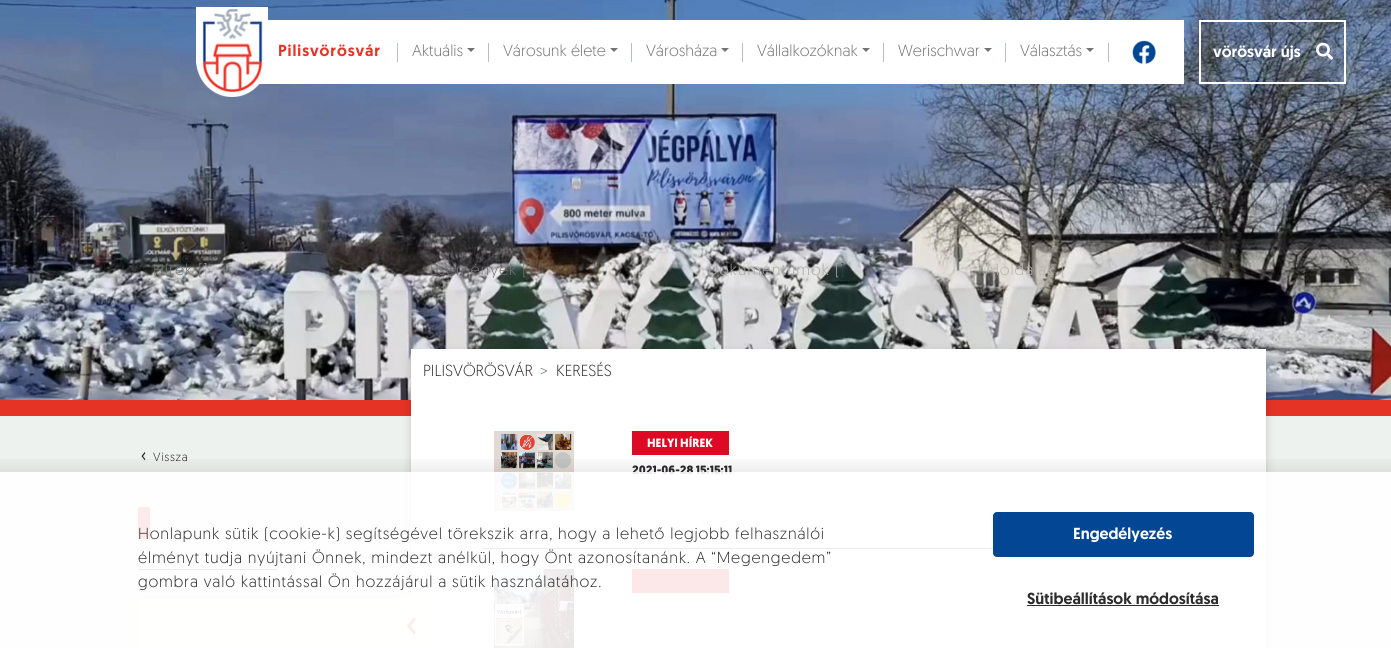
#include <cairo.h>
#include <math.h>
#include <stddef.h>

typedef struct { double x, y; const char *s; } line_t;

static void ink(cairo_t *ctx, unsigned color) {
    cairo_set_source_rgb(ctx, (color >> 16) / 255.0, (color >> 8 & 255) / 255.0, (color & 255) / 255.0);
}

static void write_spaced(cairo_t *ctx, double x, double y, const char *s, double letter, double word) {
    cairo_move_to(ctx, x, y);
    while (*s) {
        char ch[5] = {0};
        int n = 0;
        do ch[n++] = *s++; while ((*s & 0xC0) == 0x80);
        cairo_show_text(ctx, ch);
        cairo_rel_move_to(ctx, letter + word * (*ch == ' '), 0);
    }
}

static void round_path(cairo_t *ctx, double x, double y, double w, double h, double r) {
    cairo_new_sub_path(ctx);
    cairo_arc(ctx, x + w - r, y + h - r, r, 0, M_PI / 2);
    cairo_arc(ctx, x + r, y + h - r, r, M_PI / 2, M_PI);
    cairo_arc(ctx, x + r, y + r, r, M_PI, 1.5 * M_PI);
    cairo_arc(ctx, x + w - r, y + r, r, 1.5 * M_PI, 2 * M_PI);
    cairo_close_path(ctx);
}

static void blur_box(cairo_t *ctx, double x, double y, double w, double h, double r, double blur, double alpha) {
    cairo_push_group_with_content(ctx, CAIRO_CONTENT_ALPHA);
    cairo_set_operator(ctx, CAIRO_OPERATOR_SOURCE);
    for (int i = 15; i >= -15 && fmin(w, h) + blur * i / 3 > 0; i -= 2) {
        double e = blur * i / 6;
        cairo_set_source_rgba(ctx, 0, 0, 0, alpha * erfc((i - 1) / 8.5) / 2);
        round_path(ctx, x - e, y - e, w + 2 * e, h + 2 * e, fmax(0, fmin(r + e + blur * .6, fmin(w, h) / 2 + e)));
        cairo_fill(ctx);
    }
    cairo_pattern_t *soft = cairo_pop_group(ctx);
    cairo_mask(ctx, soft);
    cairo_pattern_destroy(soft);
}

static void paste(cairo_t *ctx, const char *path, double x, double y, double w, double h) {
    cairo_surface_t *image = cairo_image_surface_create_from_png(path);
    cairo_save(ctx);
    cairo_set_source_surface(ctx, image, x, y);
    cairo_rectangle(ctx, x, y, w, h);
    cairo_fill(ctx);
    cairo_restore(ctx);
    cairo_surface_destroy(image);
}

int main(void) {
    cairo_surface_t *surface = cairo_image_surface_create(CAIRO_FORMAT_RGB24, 1391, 648);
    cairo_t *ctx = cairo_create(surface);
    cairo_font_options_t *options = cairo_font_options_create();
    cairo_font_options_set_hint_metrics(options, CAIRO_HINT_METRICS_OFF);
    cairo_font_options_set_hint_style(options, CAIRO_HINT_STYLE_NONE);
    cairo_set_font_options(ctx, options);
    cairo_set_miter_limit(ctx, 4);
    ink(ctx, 0xEDF2EF);
    cairo_paint(ctx);
    ink(ctx, 0xE53326);
    cairo_rectangle(ctx, 0, 400, 1391, 16);
    cairo_fill(ctx);
    paste(ctx, "media/1.png", 0, 0, 1391, 400);
    ink(ctx, 0xFFFFFF);
    cairo_rectangle(ctx, 259, 20, 925, 64);
    cairo_fill(ctx);
    paste(ctx, "media/2.png", 196, 7, 72, 90);
    cairo_select_font_face(ctx, "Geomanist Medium", CAIRO_FONT_SLANT_NORMAL, CAIRO_FONT_WEIGHT_NORMAL);
    cairo_set_font_size(ctx, 16);
    ink(ctx, 0xE53326);
    write_spaced(ctx, 278, 56, "Pilisvörösvár", 0.9, 0);
    ink(ctx, 0xB4BDC8);
    cairo_rectangle(ctx, 397, 43, 1, 19);
    cairo_fill(ctx);
    cairo_select_font_face(ctx, "Geomanist Light", CAIRO_FONT_SLANT_NORMAL, CAIRO_FONT_WEIGHT_NORMAL);
    ink(ctx, 0x737373);
    cairo_move_to(ctx, 412, 56);
    cairo_show_text(ctx, "Aktuális");
    cairo_new_path(ctx);
    cairo_move_to(ctx, 467, 48);
    cairo_line_to(ctx, 475, 48);
    cairo_line_to(ctx, 471, 52);
    cairo_close_path(ctx);
    cairo_fill(ctx);
    ink(ctx, 0xB4BDC8);
    cairo_rectangle(ctx, 488, 43, 1, 19);
    cairo_fill(ctx);
    ink(ctx, 0x737373);
    cairo_move_to(ctx, 503, 56);
    cairo_show_text(ctx, "Városunk élete");
    cairo_new_path(ctx);
    cairo_move_to(ctx, 610, 48);
    cairo_line_to(ctx, 618, 48);
    cairo_line_to(ctx, 614, 52);
    cairo_close_path(ctx);
    cairo_fill(ctx);
    ink(ctx, 0xB4BDC8);
    cairo_rectangle(ctx, 631, 43, 1, 19);
    cairo_fill(ctx);
    ink(ctx, 0x737373);
    cairo_move_to(ctx, 646, 56);
    cairo_show_text(ctx, "Városháza");
    cairo_new_path(ctx);
    cairo_move_to(ctx, 721, 48);
    cairo_line_to(ctx, 729, 48);
    cairo_line_to(ctx, 725, 52);
    cairo_close_path(ctx);
    cairo_fill(ctx);
    ink(ctx, 0xB4BDC8);
    cairo_rectangle(ctx, 742, 43, 1, 19);
    cairo_fill(ctx);
    ink(ctx, 0x737373);
    cairo_move_to(ctx, 757, 56);
    cairo_show_text(ctx, "Vállalkozóknak");
    cairo_new_path(ctx);
    cairo_move_to(ctx, 862, 48);
    cairo_line_to(ctx, 870, 48);
    cairo_line_to(ctx, 866, 52);
    cairo_close_path(ctx);
    cairo_fill(ctx);
    ink(ctx, 0xB4BDC8);
    cairo_rectangle(ctx, 883, 43, 1, 19);
    cairo_fill(ctx);
    ink(ctx, 0x737373);
    cairo_move_to(ctx, 898, 56);
    cairo_show_text(ctx, "Werischwar");
    cairo_new_path(ctx);
    cairo_move_to(ctx, 984, 48);
    cairo_line_to(ctx, 992, 48);
    cairo_line_to(ctx, 988, 52);
    cairo_close_path(ctx);
    cairo_fill(ctx);
    ink(ctx, 0xB4BDC8);
    cairo_rectangle(ctx, 1005, 43, 1, 19);
    cairo_fill(ctx);
    ink(ctx, 0x737373);
    cairo_move_to(ctx, 1020, 56);
    cairo_show_text(ctx, "Választás");
    cairo_new_path(ctx);
    cairo_move_to(ctx, 1086, 48);
    cairo_line_to(ctx, 1094, 48);
    cairo_line_to(ctx, 1090, 52);
    cairo_close_path(ctx);
    cairo_fill(ctx);
    ink(ctx, 0xB4BDC8);
    cairo_rectangle(ctx, 1108, 43, 1, 19);
    cairo_fill(ctx);
    paste(ctx, "media/3.png", 1132, 40, 24, 24);
    cairo_rectangle(ctx, 1200, 21, 145, 62);
    ink(ctx, 0xFFFFFF);
    cairo_stroke(ctx);
    cairo_select_font_face(ctx, "Geomanist Medium", CAIRO_FONT_SLANT_NORMAL, CAIRO_FONT_WEIGHT_NORMAL);
    cairo_move_to(ctx, 1213, 57);
    cairo_show_text(ctx, "vörösvár újs");
    paste(ctx, "media/4.png", 1316, 42, 18, 18);
    cairo_select_font_face(ctx, "Geomanist Light", CAIRO_FONT_SLANT_NORMAL, CAIRO_FONT_WEIGHT_NORMAL);
    ink(ctx, 0x757977);
    write_spaced(ctx, 153, 275, "Hírek [", 0.9, 0);
    ink(ctx, 0xAAA9AA);
    write_spaced(ctx, 203, 275, "]", 0.9, 0);
    ink(ctx, 0x737373);
    write_spaced(ctx, 430, 275, "Események [", 0.9, 0);
    ink(ctx, 0xAAA9AA);
    write_spaced(ctx, 708, 275, "Dokumentumok [", 0.9, 0);
    ink(ctx, 0x344443);
    write_spaced(ctx, 840, 275, "]", 0.9, 0);
    ink(ctx, 0xB7B3AC);
    write_spaced(ctx, 985, 275, "Aloldalak [", 0.9, 0);
    paste(ctx, "media/5.png", 141, 452, 5, 9);
    cairo_set_font_size(ctx, 12);
    ink(ctx, 0x232323);
    write_spaced(ctx, 153, 461, "Vissza", 0.75, 0);
    ink(ctx, 0xE53326);
    cairo_rectangle(ctx, 138, 507, 12, 32);
    cairo_fill(ctx);
    ink(ctx, 0x474747);
    cairo_rectangle(ctx, 138, 569, 140, 1);
    cairo_fill(ctx);
    ink(ctx, 0x000000);
    blur_box(ctx, 411, 353, 855, 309, 0, 4.5, 0.18);
    ink(ctx, 0xFFFFFF);
    cairo_rectangle(ctx, 411, 349, 855, 299);
    cairo_fill(ctx);
    ink(ctx, 0x650808);
    blur_box(ctx, 146, 599, 261, 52, 0, 4.5, 0.07);
    ink(ctx, 0xFFFBEA);
    cairo_rectangle(ctx, 138, 599, 254, 49);
    cairo_fill(ctx);
    cairo_new_path(ctx);
    cairo_move_to(ctx, 370, 605);
    cairo_line_to(ctx, 440, 586);
    cairo_line_to(ctx, 451, 627);
    cairo_line_to(ctx, 381, 645);
    cairo_close_path(ctx);
    cairo_fill(ctx);
    cairo_new_path(ctx);
    cairo_move_to(ctx, 381, 605);
    cairo_line_to(ctx, 451, 623);
    cairo_line_to(ctx, 440, 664);
    cairo_line_to(ctx, 370, 645);
    cairo_close_path(ctx);
    cairo_fill(ctx);
    ink(ctx, 0xFFFFFF);
    cairo_rectangle(ctx, 431, 586, 20, 62);
    cairo_fill(ctx);
    paste(ctx, "media/6.png", 406, 617, 11, 18);
    cairo_set_font_size(ctx, 16);
    ink(ctx, 0x2D2B2D);
    cairo_move_to(ctx, 423, 376);
    cairo_show_text(ctx, "PILISVÖRÖSVÁR");
    ink(ctx, 0x6C757D);
    cairo_move_to(ctx, 540, 376);
    cairo_show_text(ctx, ">");
    ink(ctx, 0x2D2B2D);
    cairo_move_to(ctx, 556, 376);
    cairo_show_text(ctx, "KERESÉS");
    ink(ctx, 0x474747);
    cairo_rectangle(ctx, 482, 548, 511, 1);
    cairo_fill(ctx);
    paste(ctx, "media/7.png", 494, 431, 80, 80);
    ink(ctx, 0xDE0923);
    cairo_rectangle(ctx, 632, 431, 97, 24);
    cairo_fill(ctx);
    cairo_select_font_face(ctx, "Geomanist", CAIRO_FONT_SLANT_NORMAL, CAIRO_FONT_WEIGHT_BOLD);
    cairo_set_font_size(ctx, 12);
    ink(ctx, 0xFFFFFF);
    cairo_move_to(ctx, 647, 447);
    cairo_show_text(ctx, "HELYI HÍREK");
    ink(ctx, 0x2D2B2D);
    cairo_move_to(ctx, 632, 474);
    cairo_show_text(ctx, "2021-06-28 15:15:11");
    paste(ctx, "media/8.png", 494, 569, 80, 79);
    ink(ctx, 0xDE0923);
    cairo_rectangle(ctx, 632, 569, 97, 24);
    cairo_fill(ctx);
    cairo_save(ctx);
    cairo_rectangle(ctx, 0, 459, 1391, 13);
    cairo_clip(ctx);
    ink(ctx, 0x000000);
    blur_box(ctx, -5, 467, 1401, 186, 0, 10, 0.1);
    cairo_restore(ctx);
    cairo_set_source_rgba(ctx, 1, 1, 1, 0.9);
    cairo_rectangle(ctx, 0, 472, 1391, 176);
    cairo_fill(ctx);
    cairo_select_font_face(ctx, "Geomanist Light", CAIRO_FONT_SLANT_NORMAL, CAIRO_FONT_WEIGHT_NORMAL);
    cairo_set_font_size(ctx, 16);
    ink(ctx, 0x2D2B2D);
    {
        static const line_t items[] = {
            {138, 539, "Honlapunk sütik (cookie-k) segítségével törekszik arra, hogy a lehető legjobb felhasználói"},
            {138, 563, "élményt tudja nyújtani Önnek, mindezt anélkül, hogy Önt azonosítanánk. A “Megengedem”"},
            {138, 587, "gombra való kattintással Ön hozzájárul a sütik használatához."},
        };
        for (size_t i = 0; i < sizeof items / sizeof *items; i++) {
            write_spaced(ctx, items[i].x, items[i].y, items[i].s, 0.8, 0);
        }
    }
    ink(ctx, 0x024694);
    round_path(ctx, 993, 512, 261, 45, 4);
    cairo_fill(ctx);
    cairo_select_font_face(ctx, "Geomanist Medium", CAIRO_FONT_SLANT_NORMAL, CAIRO_FONT_WEIGHT_NORMAL);
    ink(ctx, 0xFFFFFF);
    cairo_move_to(ctx, 1073, 539);
    cairo_show_text(ctx, "Engedélyezés");
    ink(ctx, 0x2D2B2D);
    cairo_move_to(ctx, 1027, 604);
    cairo_show_text(ctx, "Sütibeállítások módosítása");
    cairo_rectangle(ctx, 1027, 605, 192, 1);
    cairo_fill(ctx);
    cairo_surface_write_to_png(surface, "image.png");
    cairo_font_options_destroy(options);
    cairo_destroy(ctx);
    cairo_surface_destroy(surface);
    return 0;
}
